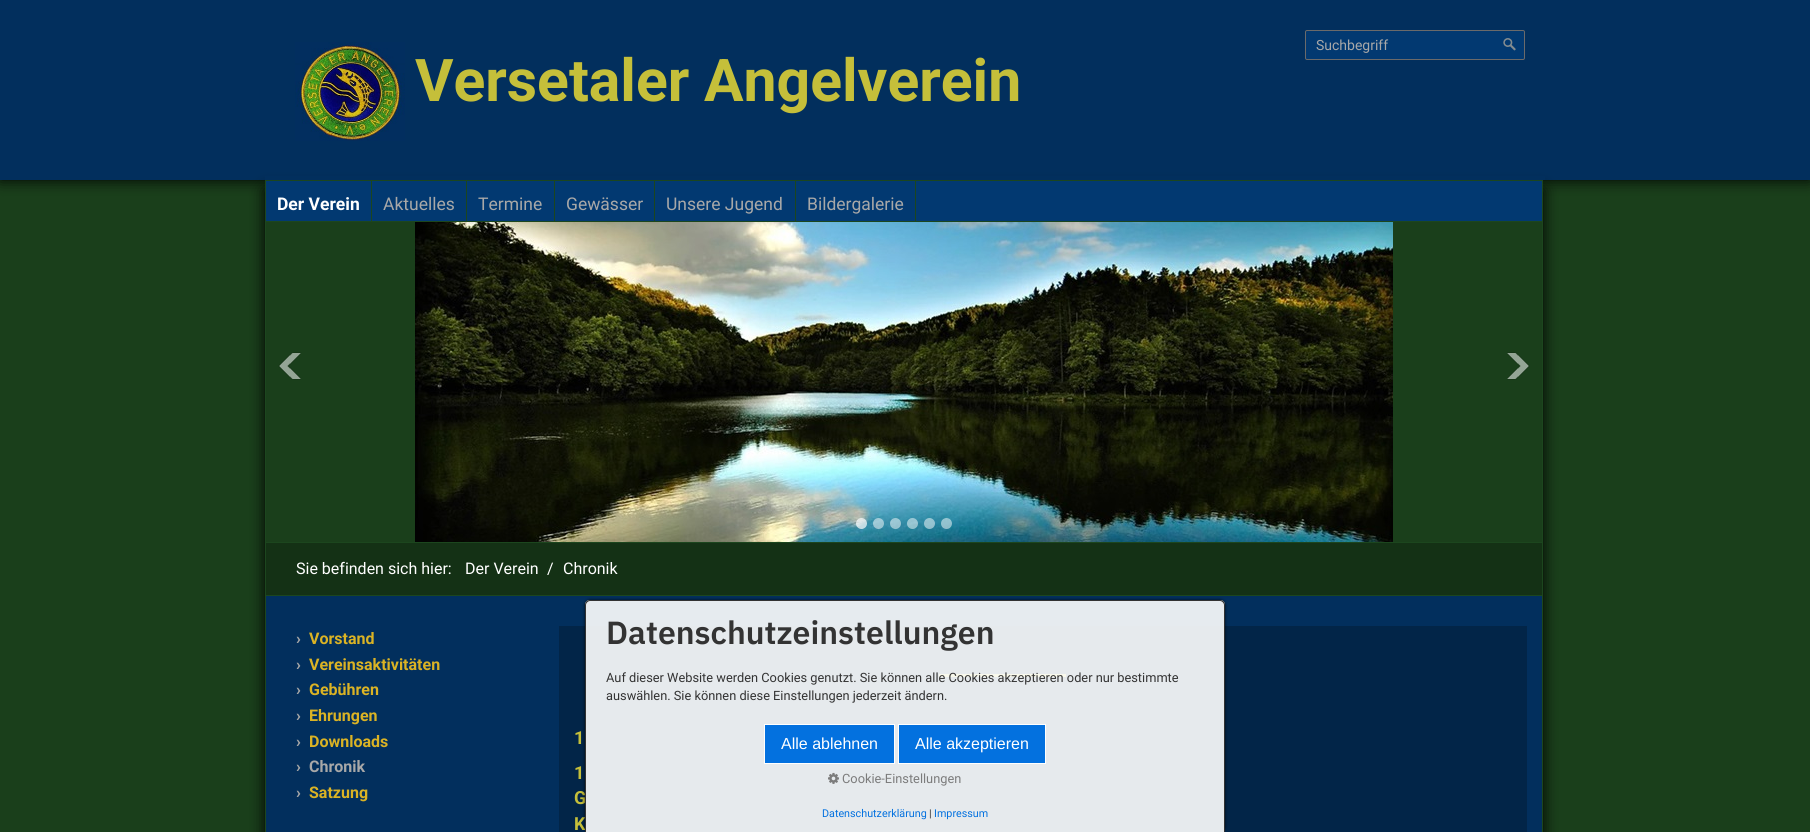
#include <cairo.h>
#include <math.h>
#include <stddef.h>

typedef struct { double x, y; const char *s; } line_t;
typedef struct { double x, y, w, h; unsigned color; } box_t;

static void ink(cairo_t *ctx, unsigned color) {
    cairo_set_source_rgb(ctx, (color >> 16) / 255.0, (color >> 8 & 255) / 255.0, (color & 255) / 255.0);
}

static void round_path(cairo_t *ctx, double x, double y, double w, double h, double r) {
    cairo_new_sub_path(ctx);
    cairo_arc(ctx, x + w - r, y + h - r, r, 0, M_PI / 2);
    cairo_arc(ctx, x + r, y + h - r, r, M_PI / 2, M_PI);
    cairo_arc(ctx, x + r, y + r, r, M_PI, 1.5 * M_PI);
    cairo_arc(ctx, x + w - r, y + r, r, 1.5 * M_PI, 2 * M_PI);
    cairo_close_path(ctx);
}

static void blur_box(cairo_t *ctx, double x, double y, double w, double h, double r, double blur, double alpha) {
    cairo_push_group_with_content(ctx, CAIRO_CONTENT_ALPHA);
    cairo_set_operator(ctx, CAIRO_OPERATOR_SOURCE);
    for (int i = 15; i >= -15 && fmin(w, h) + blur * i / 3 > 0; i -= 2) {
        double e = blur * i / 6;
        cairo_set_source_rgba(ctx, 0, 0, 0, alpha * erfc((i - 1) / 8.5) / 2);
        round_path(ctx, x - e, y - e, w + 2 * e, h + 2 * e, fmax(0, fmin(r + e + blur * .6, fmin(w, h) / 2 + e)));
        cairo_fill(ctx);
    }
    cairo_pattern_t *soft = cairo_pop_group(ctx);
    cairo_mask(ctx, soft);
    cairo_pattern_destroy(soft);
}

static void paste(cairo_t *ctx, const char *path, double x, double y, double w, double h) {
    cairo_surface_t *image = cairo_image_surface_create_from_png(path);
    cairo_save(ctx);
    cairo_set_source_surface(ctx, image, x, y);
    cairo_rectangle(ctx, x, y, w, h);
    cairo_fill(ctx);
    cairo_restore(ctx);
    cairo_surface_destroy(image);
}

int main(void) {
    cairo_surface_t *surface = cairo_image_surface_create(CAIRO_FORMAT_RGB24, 1810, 832);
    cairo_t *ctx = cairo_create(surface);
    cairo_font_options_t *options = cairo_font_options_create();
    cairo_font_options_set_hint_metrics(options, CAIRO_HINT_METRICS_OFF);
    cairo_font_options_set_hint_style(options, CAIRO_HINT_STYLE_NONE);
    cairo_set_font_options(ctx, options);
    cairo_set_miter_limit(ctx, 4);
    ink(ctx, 0x1A3F1B);
    cairo_paint(ctx);
    ink(ctx, 0x000000);
    blur_box(ctx, 0, 0, 1810, 180, 0, 7.5, 1);
    ink(ctx, 0x022F5D);
    cairo_rectangle(ctx, 0, 0, 1810, 180);
    cairo_fill(ctx);
    cairo_save(ctx);
    cairo_set_fill_rule(ctx, CAIRO_FILL_RULE_EVEN_ODD);
    cairo_new_path(ctx);
    cairo_move_to(ctx, 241, 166);
    cairo_line_to(ctx, 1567, 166);
    cairo_line_to(ctx, 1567, 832);
    cairo_line_to(ctx, 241, 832);
    cairo_close_path(ctx);
    cairo_move_to(ctx, 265, 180);
    cairo_line_to(ctx, 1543, 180);
    cairo_line_to(ctx, 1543, 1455);
    cairo_line_to(ctx, 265, 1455);
    cairo_close_path(ctx);
    cairo_clip(ctx);
    ink(ctx, 0x000000);
    blur_box(ctx, 265, 190, 1278, 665, 0, 7.5, 1);
    cairo_restore(ctx);
    cairo_rectangle(ctx, 265, 176, 1280, 4);
    cairo_fill(ctx);
    ink(ctx, 0x023971);
    round_path(ctx, 1305.5, 30.5, 219, 29, 1.5);
    cairo_fill_preserve(ctx);
    ink(ctx, 0x6B6A6A);
    cairo_set_line_width(ctx, 1);
    cairo_stroke(ctx);
    cairo_select_font_face(ctx, "Roboto", CAIRO_FONT_SLANT_NORMAL, CAIRO_FONT_WEIGHT_NORMAL);
    cairo_set_font_size(ctx, 14);
    ink(ctx, 0xA8A8A8);
    cairo_move_to(ctx, 1316, 50);
    cairo_show_text(ctx, "Suchbegriff");
    paste(ctx, "media/1.png", 1503, 38, 13, 13);
    paste(ctx, "media/2.png", 295, 42, 110, 99);
    cairo_select_font_face(ctx, "Roboto", CAIRO_FONT_SLANT_NORMAL, CAIRO_FONT_WEIGHT_BOLD);
    cairo_set_font_size(ctx, 58.9);
    ink(ctx, 0xC5BF3A);
    cairo_move_to(ctx, 415, 101);
    cairo_show_text(ctx, "Versetaler Angelverein");
    cairo_rectangle(ctx, 265.5, 180.5, 1277, 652);
    ink(ctx, 0x1C461E);
    cairo_stroke(ctx);
    {
        static const box_t items[] = {
            {266, 181, 1276, 40, 0x023971},
            {266, 221, 1276, 1, 0x1C461E},
            {371, 181, 1, 40, 0x1C461E},
        };
        for (size_t i = 0; i < sizeof items / sizeof *items; i++) {
            ink(ctx, items[i].color);
            cairo_rectangle(ctx, items[i].x, items[i].y, items[i].w, items[i].h);
            cairo_fill(ctx);
        }
    }
    cairo_set_font_size(ctx, 17.5);
    ink(ctx, 0xFFFFFF);
    cairo_move_to(ctx, 277, 210);
    cairo_show_text(ctx, "Der Verein");
    ink(ctx, 0x1C461E);
    cairo_rectangle(ctx, 466, 181, 1, 40);
    cairo_fill(ctx);
    cairo_select_font_face(ctx, "Roboto", CAIRO_FONT_SLANT_NORMAL, CAIRO_FONT_WEIGHT_NORMAL);
    ink(ctx, 0xA8A8A8);
    cairo_move_to(ctx, 383, 210);
    cairo_show_text(ctx, "Aktuelles");
    ink(ctx, 0x1C461E);
    cairo_rectangle(ctx, 554, 181, 1, 40);
    cairo_fill(ctx);
    ink(ctx, 0xA8A8A8);
    cairo_move_to(ctx, 478, 210);
    cairo_show_text(ctx, "Termine");
    ink(ctx, 0x1C461E);
    cairo_rectangle(ctx, 654, 181, 1, 40);
    cairo_fill(ctx);
    ink(ctx, 0xA8A8A8);
    cairo_move_to(ctx, 566, 210);
    cairo_show_text(ctx, "Gewässer");
    ink(ctx, 0x1C461E);
    cairo_rectangle(ctx, 795, 181, 1, 40);
    cairo_fill(ctx);
    ink(ctx, 0xA8A8A8);
    cairo_move_to(ctx, 666, 210);
    cairo_show_text(ctx, "Unsere Jugend");
    ink(ctx, 0x1C461E);
    cairo_rectangle(ctx, 915, 181, 1, 40);
    cairo_fill(ctx);
    ink(ctx, 0xA8A8A8);
    cairo_move_to(ctx, 807, 210);
    cairo_show_text(ctx, "Bildergalerie");
    paste(ctx, "media/3.png", 415, 222, 978, 320);
    paste(ctx, "media/4.png", 278, 352, 23, 28);
    paste(ctx, "media/5.png", 1507, 352, 23, 28);
    cairo_set_source_rgba(ctx, 1, 1, 1, 0.7);
    cairo_arc(ctx, 861.5, 523.5, 5.5, 0, 2 * M_PI);
    cairo_fill(ctx);
    cairo_set_source_rgba(ctx, 1, 1, 1, 0.5);
    cairo_arc(ctx, 878.5, 523.5, 5.5, 0, 2 * M_PI);
    cairo_fill(ctx);
    cairo_arc(ctx, 895.5, 523.5, 5.5, 0, 2 * M_PI);
    cairo_fill(ctx);
    cairo_arc(ctx, 912.5, 523.5, 5.5, 0, 2 * M_PI);
    cairo_fill(ctx);
    cairo_arc(ctx, 929.5, 523.5, 5.5, 0, 2 * M_PI);
    cairo_fill(ctx);
    cairo_arc(ctx, 946.5, 523.5, 5.5, 0, 2 * M_PI);
    cairo_fill(ctx);
    {
        static const box_t items[] = {
            {266, 543, 1276, 52, 0x143115},
            {266, 542, 1276, 1, 0x1C461E},
            {266, 595, 1276, 1, 0x1C461E},
        };
        for (size_t i = 0; i < sizeof items / sizeof *items; i++) {
            ink(ctx, items[i].color);
            cairo_rectangle(ctx, items[i].x, items[i].y, items[i].w, items[i].h);
            cairo_fill(ctx);
        }
    }
    cairo_set_font_size(ctx, 16);
    ink(ctx, 0xFFFFFF);
    {
        static const line_t items[] = {
            {296, 574, "Sie befinden sich hier:"},
            {465, 574, "Der Verein"},
            {547, 574, "/"},
            {563, 574, "Chronik"},
        };
        for (size_t i = 0; i < sizeof items / sizeof *items; i++) {
            cairo_move_to(ctx, items[i].x, items[i].y);
            cairo_show_text(ctx, items[i].s);
        }
    }
    ink(ctx, 0x022F5D);
    cairo_rectangle(ctx, 266, 596, 1276, 236);
    cairo_fill(ctx);
    cairo_select_font_face(ctx, "Roboto", CAIRO_FONT_SLANT_NORMAL, CAIRO_FONT_WEIGHT_BOLD);
    ink(ctx, 0xA8A8A8);
    cairo_move_to(ctx, 296, 644);
    cairo_show_text(ctx, "›");
    ink(ctx, 0xDBB324);
    cairo_move_to(ctx, 309, 644);
    cairo_show_text(ctx, "Vorstand");
    ink(ctx, 0xA8A8A8);
    cairo_move_to(ctx, 296, 670);
    cairo_show_text(ctx, "›");
    ink(ctx, 0xDBB324);
    cairo_move_to(ctx, 309, 670);
    cairo_show_text(ctx, "Vereinsaktivitäten");
    ink(ctx, 0xA8A8A8);
    cairo_move_to(ctx, 296, 695);
    cairo_show_text(ctx, "›");
    ink(ctx, 0xDBB324);
    cairo_move_to(ctx, 309, 695);
    cairo_show_text(ctx, "Gebühren");
    ink(ctx, 0xA8A8A8);
    cairo_move_to(ctx, 296, 721);
    cairo_show_text(ctx, "›");
    ink(ctx, 0xDBB324);
    cairo_move_to(ctx, 309, 721);
    cairo_show_text(ctx, "Ehrungen");
    ink(ctx, 0xA8A8A8);
    cairo_move_to(ctx, 296, 747);
    cairo_show_text(ctx, "›");
    ink(ctx, 0xDBB324);
    cairo_move_to(ctx, 309, 747);
    cairo_show_text(ctx, "Downloads");
    ink(ctx, 0xA8A8A8);
    {
        static const line_t items[] = {
            {296, 772, "›"},
            {309, 772, "Chronik"},
            {296, 798, "›"},
        };
        for (size_t i = 0; i < sizeof items / sizeof *items; i++) {
            cairo_move_to(ctx, items[i].x, items[i].y);
            cairo_show_text(ctx, items[i].s);
        }
    }
    ink(ctx, 0xDBB324);
    cairo_move_to(ctx, 309, 798);
    cairo_show_text(ctx, "Satzung");
    ink(ctx, 0x022548);
    cairo_rectangle(ctx, 559, 626, 968, 206);
    cairo_fill(ctx);
    ink(ctx, 0xC5BF3A);
    cairo_rectangle(ctx, 939, 674, 127, 3);
    cairo_fill(ctx);
    cairo_set_font_size(ctx, 18);
    {
        static const line_t items[] = {
            {574, 744, "1"},
            {574, 779, "1"},
            {574, 804, "G"},
            {574, 830, "K"},
        };
        for (size_t i = 0; i < sizeof items / sizeof *items; i++) {
            cairo_move_to(ctx, items[i].x, items[i].y);
            cairo_show_text(ctx, items[i].s);
        }
    }
    cairo_save(ctx);
    cairo_set_fill_rule(ctx, CAIRO_FILL_RULE_EVEN_ODD);
    cairo_new_path(ctx);
    cairo_move_to(ctx, 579, 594);
    cairo_line_to(ctx, 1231, 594);
    cairo_line_to(ctx, 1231, 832);
    cairo_line_to(ctx, 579, 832);
    cairo_close_path(ctx);
    cairo_move_to(ctx, 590, 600);
    cairo_line_to(ctx, 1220, 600);
    cairo_curve_to(ctx, 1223, 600, 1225, 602, 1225, 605);
    cairo_line_to(ctx, 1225, 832);
    cairo_line_to(ctx, 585, 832);
    cairo_line_to(ctx, 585, 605);
    cairo_curve_to(ctx, 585, 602, 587, 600, 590, 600);
    cairo_close_path(ctx);
    cairo_clip(ctx);
    ink(ctx, 0x000000);
    blur_box(ctx, 585, 600, 640, 232, 5, 1.5, 0.8);
    cairo_restore(ctx);
    cairo_set_source_rgba(ctx, 1, 1, 1, 0.9);
    cairo_new_path(ctx);
    cairo_move_to(ctx, 590, 600);
    cairo_line_to(ctx, 1220, 600);
    cairo_curve_to(ctx, 1223, 600, 1225, 602, 1225, 605);
    cairo_line_to(ctx, 1225, 832);
    cairo_line_to(ctx, 585, 832);
    cairo_line_to(ctx, 585, 605);
    cairo_curve_to(ctx, 585, 602, 587, 600, 590, 600);
    cairo_close_path(ctx);
    cairo_fill(ctx);
    ink(ctx, 0x333333);
    cairo_set_fill_rule(ctx, CAIRO_FILL_RULE_EVEN_ODD);
    cairo_new_path(ctx);
    cairo_move_to(ctx, 590, 600);
    cairo_line_to(ctx, 1220, 600);
    cairo_curve_to(ctx, 1223, 600, 1225, 602, 1225, 605);
    cairo_line_to(ctx, 1225, 832);
    cairo_line_to(ctx, 585, 832);
    cairo_line_to(ctx, 585, 605);
    cairo_curve_to(ctx, 585, 602, 587, 600, 590, 600);
    cairo_close_path(ctx);
    cairo_move_to(ctx, 590, 601);
    cairo_line_to(ctx, 1220, 601);
    cairo_curve_to(ctx, 1222, 601, 1224, 603, 1224, 605);
    cairo_line_to(ctx, 1224, 832);
    cairo_line_to(ctx, 586, 832);
    cairo_line_to(ctx, 586, 605);
    cairo_curve_to(ctx, 586, 603, 588, 601, 590, 601);
    cairo_close_path(ctx);
    cairo_fill(ctx);
    cairo_select_font_face(ctx, "IBM Plex Sans SemiBold", CAIRO_FONT_SLANT_NORMAL, CAIRO_FONT_WEIGHT_NORMAL);
    cairo_set_font_size(ctx, 32);
    cairo_move_to(ctx, 606, 644);
    cairo_show_text(ctx, "Datenschutzeinstellungen");
    cairo_select_font_face(ctx, "Roboto", CAIRO_FONT_SLANT_NORMAL, CAIRO_FONT_WEIGHT_NORMAL);
    cairo_set_font_size(ctx, 12.8);
    cairo_move_to(ctx, 606, 682);
    cairo_show_text(ctx, "Auf dieser Website werden Cookies genutzt. Sie können alle Cookies akzeptieren oder nur bestimmte");
    cairo_move_to(ctx, 606, 700);
    cairo_show_text(ctx, "auswählen. Sie können diese Einstellungen jederzeit ändern.");
    ink(ctx, 0x0371DF);
    cairo_rectangle(ctx, 764.5, 724.5, 130, 39);
    cairo_fill_preserve(ctx);
    ink(ctx, 0xFFFFFF);
    cairo_stroke(ctx);
    cairo_select_font_face(ctx, "Liberation Sans", CAIRO_FONT_SLANT_NORMAL, CAIRO_FONT_WEIGHT_NORMAL);
    cairo_set_font_size(ctx, 16);
    cairo_move_to(ctx, 781, 749);
    cairo_show_text(ctx, "Alle ablehnen");
    ink(ctx, 0x0371DF);
    cairo_rectangle(ctx, 898.5, 724.5, 147, 39);
    cairo_fill_preserve(ctx);
    ink(ctx, 0xFFFFFF);
    cairo_stroke(ctx);
    cairo_move_to(ctx, 915, 749);
    cairo_show_text(ctx, "Alle akzeptieren");
    paste(ctx, "media/6.png", 828, 772, 11, 12);
    cairo_select_font_face(ctx, "Roboto", CAIRO_FONT_SLANT_NORMAL, CAIRO_FONT_WEIGHT_NORMAL);
    cairo_set_font_size(ctx, 12.8);
    ink(ctx, 0x7C7C7C);
    cairo_move_to(ctx, 842, 783);
    cairo_show_text(ctx, "Cookie-Einstellungen");
    cairo_set_font_size(ctx, 10.75);
    ink(ctx, 0x0371DF);
    cairo_move_to(ctx, 822, 817);
    cairo_show_text(ctx, "Datenschutzerklärung");
    ink(ctx, 0x333333);
    cairo_move_to(ctx, 929, 817);
    cairo_show_text(ctx, "|");
    ink(ctx, 0x0371DF);
    cairo_move_to(ctx, 934, 817);
    cairo_show_text(ctx, "Impressum");
    cairo_surface_write_to_png(surface, "image.png");
    cairo_font_options_destroy(options);
    cairo_destroy(ctx);
    cairo_surface_destroy(surface);
    return 0;
}
